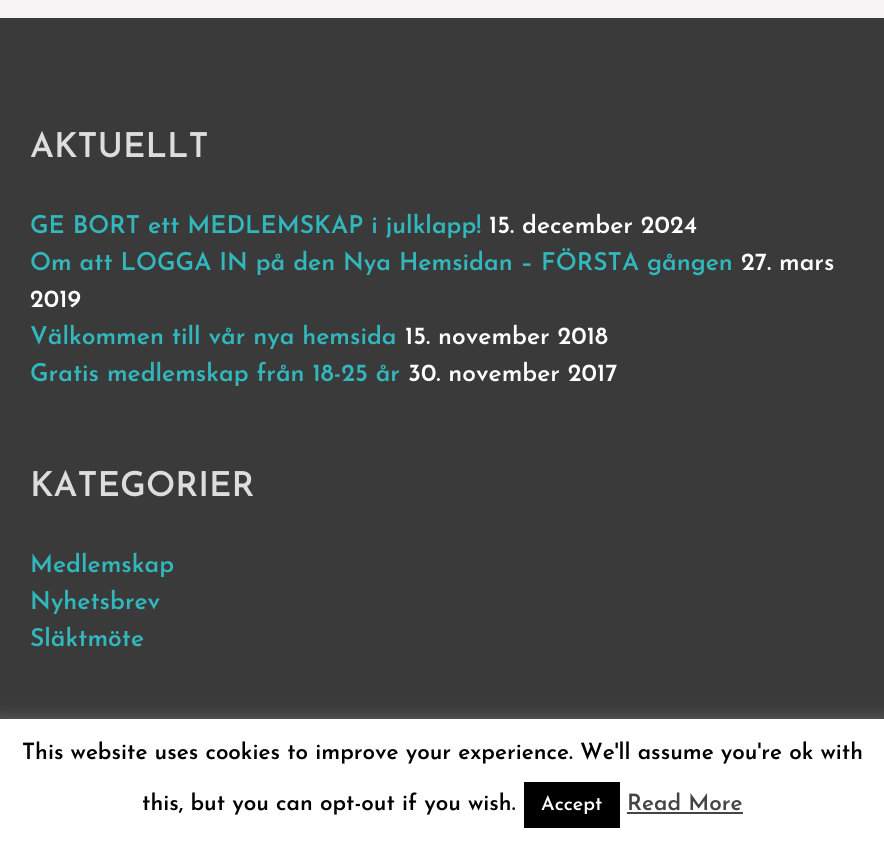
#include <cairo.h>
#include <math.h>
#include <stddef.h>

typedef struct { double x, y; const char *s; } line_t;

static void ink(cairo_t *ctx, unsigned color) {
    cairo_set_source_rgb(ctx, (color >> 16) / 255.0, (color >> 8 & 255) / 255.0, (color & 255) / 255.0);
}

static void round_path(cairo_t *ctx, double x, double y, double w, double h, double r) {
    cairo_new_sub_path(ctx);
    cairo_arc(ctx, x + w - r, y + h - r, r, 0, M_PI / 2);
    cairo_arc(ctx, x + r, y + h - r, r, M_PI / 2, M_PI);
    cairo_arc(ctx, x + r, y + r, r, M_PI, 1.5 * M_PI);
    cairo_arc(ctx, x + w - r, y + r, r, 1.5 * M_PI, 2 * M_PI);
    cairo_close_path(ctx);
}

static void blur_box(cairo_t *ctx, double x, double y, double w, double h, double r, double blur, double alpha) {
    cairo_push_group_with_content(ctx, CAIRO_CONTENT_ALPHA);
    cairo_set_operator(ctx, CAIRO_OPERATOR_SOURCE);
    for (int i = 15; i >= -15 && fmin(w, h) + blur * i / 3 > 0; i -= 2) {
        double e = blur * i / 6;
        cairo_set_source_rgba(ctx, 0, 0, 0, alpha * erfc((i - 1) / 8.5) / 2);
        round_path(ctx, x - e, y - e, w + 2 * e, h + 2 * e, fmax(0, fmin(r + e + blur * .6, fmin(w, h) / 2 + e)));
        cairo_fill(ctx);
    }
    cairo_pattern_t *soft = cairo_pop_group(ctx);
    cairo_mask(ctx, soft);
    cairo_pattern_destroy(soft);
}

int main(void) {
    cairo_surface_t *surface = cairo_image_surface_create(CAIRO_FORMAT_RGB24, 884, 846);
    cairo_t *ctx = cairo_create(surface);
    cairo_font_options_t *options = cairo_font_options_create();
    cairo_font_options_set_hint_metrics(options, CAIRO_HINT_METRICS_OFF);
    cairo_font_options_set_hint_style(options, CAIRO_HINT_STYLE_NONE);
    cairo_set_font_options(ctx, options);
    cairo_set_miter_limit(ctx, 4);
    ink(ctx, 0xF8F4F5);
    cairo_paint(ctx);
    ink(ctx, 0x3A3A3A);
    cairo_rectangle(ctx, 0, 18, 884, 701);
    cairo_fill(ctx);
    cairo_select_font_face(ctx, "Josefin Sans Thin", CAIRO_FONT_SLANT_NORMAL, CAIRO_FONT_WEIGHT_NORMAL);
    cairo_set_font_size(ctx, 34.25);
    ink(ctx, 0xDDDDDD);
    cairo_move_to(ctx, 30, 157);
    cairo_show_text(ctx, "AKTUELLT");
    cairo_set_font_size(ctx, 24.6);
    ink(ctx, 0x31B7BC);
    cairo_move_to(ctx, 30, 233);
    cairo_show_text(ctx, "GE BORT ett MEDLEMSKAP i julklapp!");
    ink(ctx, 0xFFFFFF);
    cairo_move_to(ctx, 489, 233);
    cairo_show_text(ctx, "15. december 2024");
    ink(ctx, 0x31B7BC);
    cairo_move_to(ctx, 30, 270);
    cairo_show_text(ctx, "Om att LOGGA IN på den Nya Hemsidan – FÖRSTA gången");
    ink(ctx, 0xFFFFFF);
    cairo_move_to(ctx, 741, 270);
    cairo_show_text(ctx, "27. mars");
    cairo_move_to(ctx, 30, 307);
    cairo_show_text(ctx, "2019");
    ink(ctx, 0x31B7BC);
    cairo_move_to(ctx, 30, 344);
    cairo_show_text(ctx, "Välkommen till vår nya hemsida");
    ink(ctx, 0xFFFFFF);
    cairo_move_to(ctx, 405, 344);
    cairo_show_text(ctx, "15. november 2018");
    ink(ctx, 0x31B7BC);
    cairo_move_to(ctx, 30, 381);
    cairo_show_text(ctx, "Gratis medlemskap från 18-25 år");
    ink(ctx, 0xFFFFFF);
    cairo_move_to(ctx, 408, 381);
    cairo_show_text(ctx, "30. november 2017");
    cairo_set_font_size(ctx, 34.25);
    ink(ctx, 0xDDDDDD);
    cairo_move_to(ctx, 30, 496);
    cairo_show_text(ctx, "KATEGORIER");
    cairo_set_font_size(ctx, 24.6);
    ink(ctx, 0x31B7BC);
    {
        static const line_t items[] = {
            {30, 572, "Medlemskap"},
            {30, 609, "Nyhetsbrev"},
            {30, 646, "Släktmöte"},
        };
        for (size_t i = 0; i < sizeof items / sizeof *items; i++) {
            cairo_move_to(ctx, items[i].x, items[i].y);
            cairo_show_text(ctx, items[i].s);
        }
    }
    ink(ctx, 0xACABAB);
    blur_box(ctx, 0, 717, 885, 128, 0, 7.5, 0.3);
    ink(ctx, 0xFFFFFF);
    cairo_rectangle(ctx, 0, 719, 884, 127);
    cairo_fill(ctx);
    cairo_set_font_size(ctx, 22.5);
    ink(ctx, 0x000000);
    cairo_move_to(ctx, 22, 759);
    cairo_show_text(ctx, "This website uses cookies to improve your experience. We'll assume you're ok with");
    cairo_move_to(ctx, 142, 810);
    cairo_show_text(ctx, "this, but you can opt-out if you wish.");
    cairo_rectangle(ctx, 524, 782, 96, 46);
    cairo_fill(ctx);
    cairo_set_font_size(ctx, 19.5);
    ink(ctx, 0xFFFFFF);
    cairo_move_to(ctx, 541, 810);
    cairo_show_text(ctx, "Accept");
    cairo_set_font_size(ctx, 22.5);
    ink(ctx, 0x444444);
    cairo_move_to(ctx, 627, 810);
    cairo_show_text(ctx, "Read More");
    cairo_rectangle(ctx, 627, 812, 116, 2);
    cairo_fill(ctx);
    cairo_surface_write_to_png(surface, "image.png");
    cairo_font_options_destroy(options);
    cairo_destroy(ctx);
    cairo_surface_destroy(surface);
    return 0;
}
